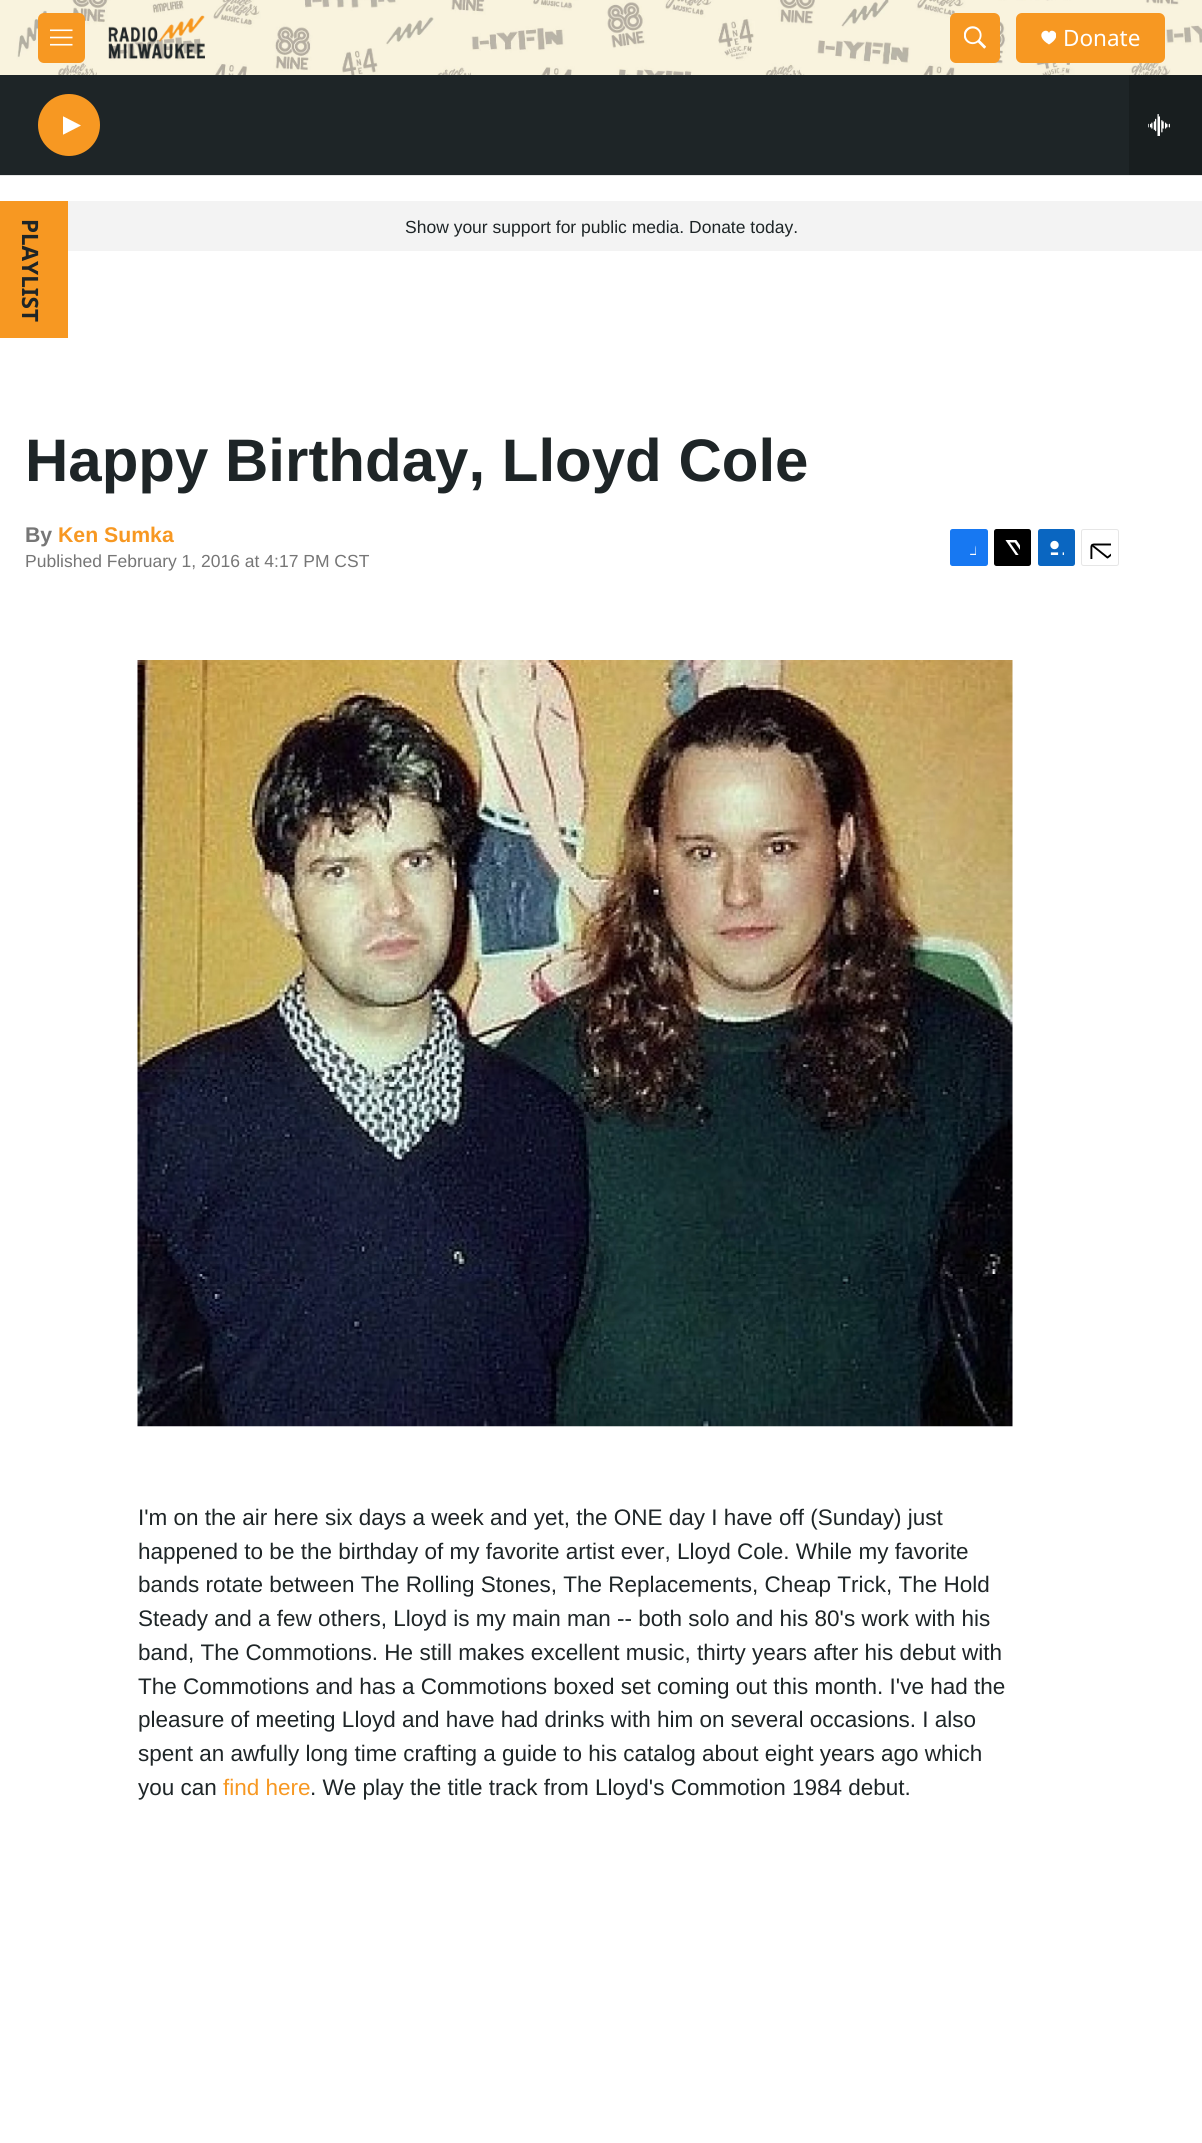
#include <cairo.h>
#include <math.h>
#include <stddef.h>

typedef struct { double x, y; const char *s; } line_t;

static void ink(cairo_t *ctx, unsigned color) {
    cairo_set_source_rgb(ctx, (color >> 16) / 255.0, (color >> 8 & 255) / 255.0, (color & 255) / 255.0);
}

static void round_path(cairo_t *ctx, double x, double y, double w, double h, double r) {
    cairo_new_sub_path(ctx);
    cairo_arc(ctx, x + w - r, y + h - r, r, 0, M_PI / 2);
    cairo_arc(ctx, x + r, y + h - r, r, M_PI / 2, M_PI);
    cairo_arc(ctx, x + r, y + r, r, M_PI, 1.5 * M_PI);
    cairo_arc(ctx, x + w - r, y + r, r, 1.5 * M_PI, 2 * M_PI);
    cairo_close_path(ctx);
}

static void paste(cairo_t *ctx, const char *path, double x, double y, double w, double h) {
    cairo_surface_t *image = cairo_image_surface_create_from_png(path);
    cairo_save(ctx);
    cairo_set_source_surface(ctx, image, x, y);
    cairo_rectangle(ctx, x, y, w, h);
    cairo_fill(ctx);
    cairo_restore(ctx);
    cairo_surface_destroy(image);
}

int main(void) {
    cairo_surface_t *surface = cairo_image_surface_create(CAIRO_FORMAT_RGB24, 1202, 2143);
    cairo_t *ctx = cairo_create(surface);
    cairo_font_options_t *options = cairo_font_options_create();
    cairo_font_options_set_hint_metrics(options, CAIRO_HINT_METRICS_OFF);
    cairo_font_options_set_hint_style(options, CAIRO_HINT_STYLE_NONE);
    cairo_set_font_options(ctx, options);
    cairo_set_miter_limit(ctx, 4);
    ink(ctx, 0xFFFFFF);
    cairo_paint(ctx);
    ink(ctx, 0x1E2527);
    cairo_rectangle(ctx, 0, 75, 1129, 100);
    cairo_fill(ctx);
    ink(ctx, 0xE6E6E6);
    cairo_rectangle(ctx, 0, 175, 1202, 1);
    cairo_fill(ctx);
    paste(ctx, "media/1.png", 0, 0, 1202, 75);
    ink(ctx, 0xF79822);
    round_path(ctx, 38, 13, 47, 50, 6);
    cairo_fill(ctx);
    paste(ctx, "media/2.png", 50, 29, 23, 17);
    paste(ctx, "media/3.png", 108, 15, 97, 45);
    round_path(ctx, 950, 13, 50, 50, 6);
    cairo_fill(ctx);
    paste(ctx, "media/4.png", 964, 26, 22, 23);
    round_path(ctx, 1016, 13, 149, 50, 6);
    cairo_fill(ctx);
    cairo_save(ctx);
    cairo_rectangle(ctx, 1041, 30, 15, 15);
    cairo_clip(ctx);
    ink(ctx, 0xFFFFFF);
    cairo_new_path(ctx);
    cairo_move_to(ctx, 1049, 33);
    cairo_curve_to(ctx, 1046.5, 26.5, 1033, 35, 1049, 44.5);
    cairo_curve_to(ctx, 1064.5, 35, 1051, 26.5, 1049, 33);
    cairo_close_path(ctx);
    cairo_fill(ctx);
    cairo_restore(ctx);
    cairo_select_font_face(ctx, "Noto Sans", CAIRO_FONT_SLANT_NORMAL, CAIRO_FONT_WEIGHT_NORMAL);
    cairo_set_font_size(ctx, 22.5);
    ink(ctx, 0xFFFFFF);
    cairo_move_to(ctx, 1063, 46);
    cairo_show_text(ctx, "Donate");
    ink(ctx, 0xF79822);
    cairo_new_path(ctx);
    cairo_arc(ctx, 69, 125, 31, 0, 2 * M_PI);
    cairo_fill(ctx);
    cairo_save(ctx);
    cairo_rectangle(ctx, 63, 114, 18, 24);
    cairo_clip(ctx);
    ink(ctx, 0xFFFFFF);
    cairo_new_path(ctx);
    cairo_move_to(ctx, 62.5, 116);
    cairo_line_to(ctx, 81, 125.5);
    cairo_line_to(ctx, 62.5, 135);
    cairo_close_path(ctx);
    cairo_fill(ctx);
    cairo_restore(ctx);
    ink(ctx, 0x181E1F);
    cairo_rectangle(ctx, 1129, 75, 73, 100);
    cairo_fill(ctx);
    paste(ctx, "media/5.png", 1148, 114, 22, 22);
    ink(ctx, 0xF79822);
    cairo_rectangle(ctx, 0, 201, 68, 137);
    cairo_fill(ctx);
    cairo_select_font_face(ctx, "Noto Sans", CAIRO_FONT_SLANT_NORMAL, CAIRO_FONT_WEIGHT_BOLD);
    ink(ctx, 0x1E2527);
    cairo_save(ctx);
    cairo_translate(ctx, 22, 219);
    cairo_rotate(ctx, 90 * M_PI / 180);
    cairo_move_to(ctx, 0, 0);
    cairo_show_text(ctx, "PLAYLIST");
    cairo_restore(ctx);
    ink(ctx, 0xF3F3F3);
    cairo_rectangle(ctx, 68, 201, 1134, 50);
    cairo_fill(ctx);
    cairo_select_font_face(ctx, "Liberation Sans", CAIRO_FONT_SLANT_NORMAL, CAIRO_FONT_WEIGHT_NORMAL);
    cairo_set_font_size(ctx, 17.5);
    ink(ctx, 0x1E2527);
    cairo_move_to(ctx, 405, 233);
    cairo_show_text(ctx, "Show your support for public media. Donate today.");
    cairo_select_font_face(ctx, "Liberation Sans", CAIRO_FONT_SLANT_NORMAL, CAIRO_FONT_WEIGHT_BOLD);
    cairo_set_font_size(ctx, 60);
    cairo_move_to(ctx, 25, 481);
    cairo_show_text(ctx, "Happy Birthday, Lloyd Cole");
    cairo_set_font_size(ctx, 21.25);
    ink(ctx, 0x767676);
    cairo_move_to(ctx, 25, 542);
    cairo_show_text(ctx, "By");
    ink(ctx, 0xF79822);
    cairo_move_to(ctx, 58, 542);
    cairo_show_text(ctx, "Ken Sumka");
    cairo_select_font_face(ctx, "Liberation Sans", CAIRO_FONT_SLANT_NORMAL, CAIRO_FONT_WEIGHT_NORMAL);
    cairo_set_font_size(ctx, 17.5);
    ink(ctx, 0x767676);
    cairo_move_to(ctx, 25, 567);
    cairo_show_text(ctx, "Published February 1, 2016 at 4:17 PM CST");
    ink(ctx, 0x1778F2);
    round_path(ctx, 950, 529, 38, 37, 2.5);
    cairo_fill(ctx);
    paste(ctx, "media/6.png", 970, 545, 6, 10);
    ink(ctx, 0x000000);
    round_path(ctx, 994, 529, 37, 37, 2.5);
    cairo_fill(ctx);
    paste(ctx, "media/7.png", 1005, 540, 15, 15);
    ink(ctx, 0x0A66C1);
    round_path(ctx, 1038, 529, 37, 37, 2.5);
    cairo_fill(ctx);
    paste(ctx, "media/8.png", 1050, 540, 14, 15);
    round_path(ctx, 1081.5, 529.5, 37, 36, 2);
    ink(ctx, 0xE6E6E6);
    cairo_set_line_width(ctx, 1);
    cairo_stroke(ctx);
    paste(ctx, "media/9.png", 1090, 543, 21, 16);
    paste(ctx, "media/10.png", 137, 660, 876, 767);
    cairo_set_font_size(ctx, 22.5);
    ink(ctx, 0x1E2527);
    {
        static const line_t items[] = {
            {138, 1525, "I'm on the air here six days a week and yet, the ONE day I have off (Sunday) just"},
            {138, 1559, "happened to be the birthday of my favorite artist ever, Lloyd Cole. While my favorite"},
            {138, 1592, "bands rotate between The Rolling Stones, The Replacements, Cheap Trick, The Hold"},
            {138, 1626, "Steady and a few others, Lloyd is my main man -- both solo and his 80's work with his"},
            {138, 1660, "band, The Commotions. He still makes excellent music, thirty years after his debut with"},
            {138, 1694, "The Commotions and has a Commotions boxed set coming out this month. I've had the"},
            {138, 1727, "pleasure of meeting Lloyd and have had drinks with him on several occasions. I also"},
            {138, 1761, "spent an awfully long time crafting a guide to his catalog about eight years ago which"},
            {138, 1795, "you can"},
        };
        for (size_t i = 0; i < sizeof items / sizeof *items; i++) {
            cairo_move_to(ctx, items[i].x, items[i].y);
            cairo_show_text(ctx, items[i].s);
        }
    }
    ink(ctx, 0xF79822);
    cairo_move_to(ctx, 223, 1795);
    cairo_show_text(ctx, "find here");
    ink(ctx, 0x1E2527);
    cairo_move_to(ctx, 310, 1795);
    cairo_show_text(ctx, ". We play the title track from Lloyd's Commotion 1984 debut.");
    cairo_surface_write_to_png(surface, "image.png");
    cairo_font_options_destroy(options);
    cairo_destroy(ctx);
    cairo_surface_destroy(surface);
    return 0;
}
